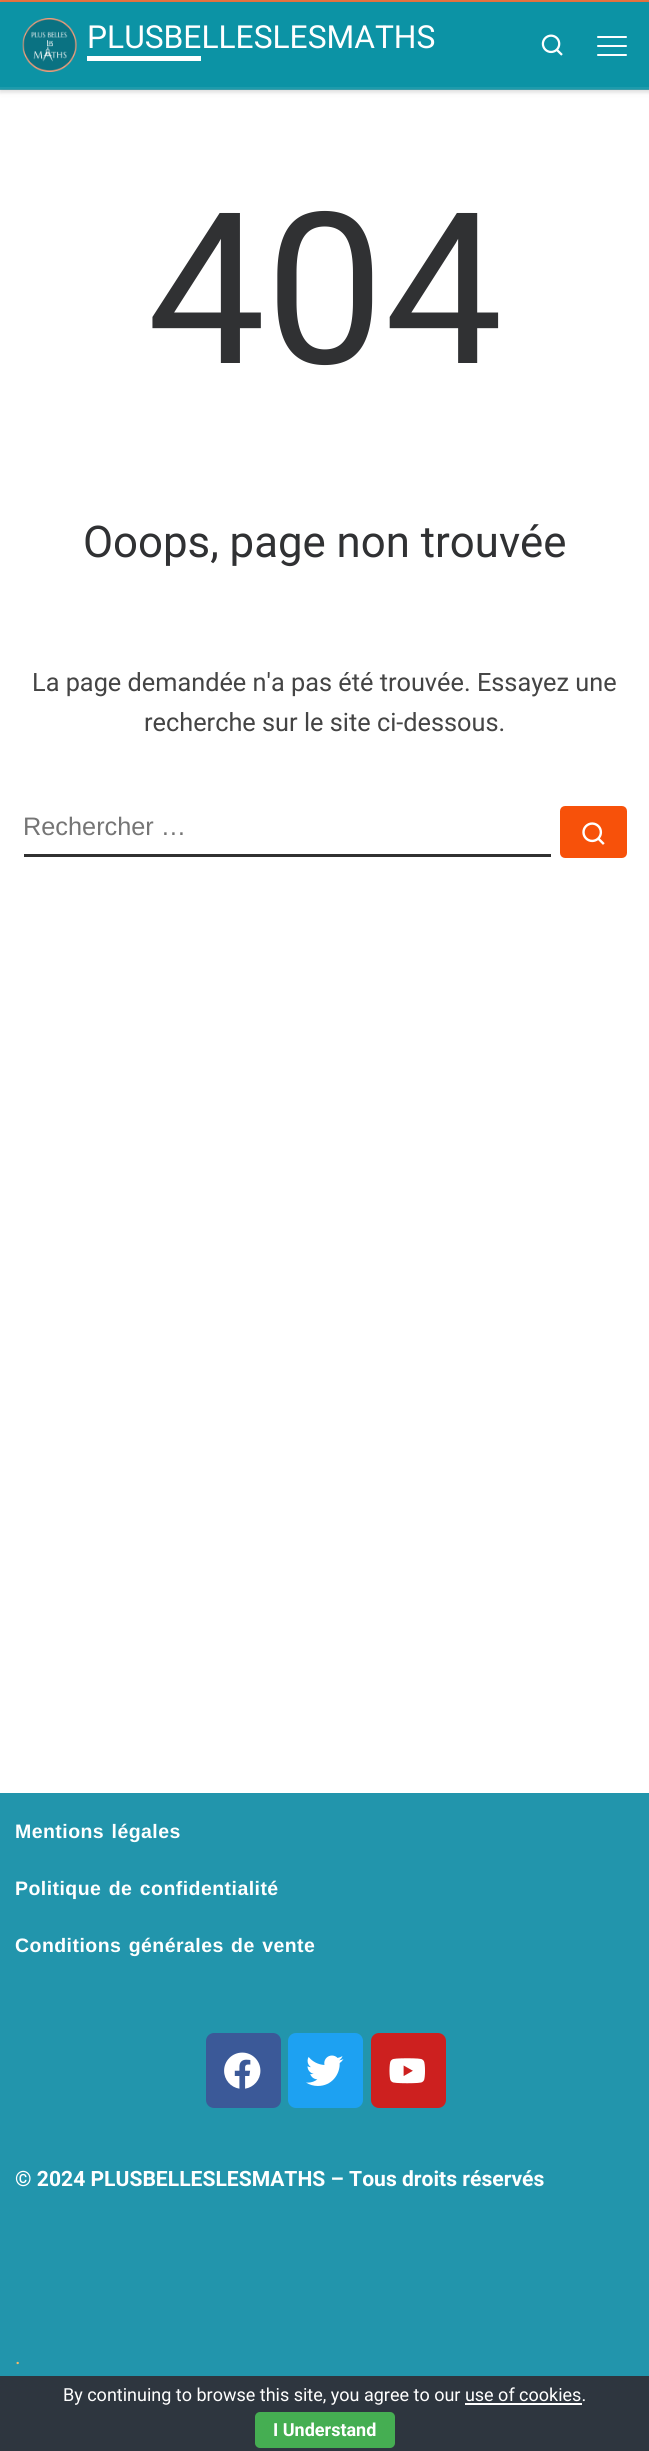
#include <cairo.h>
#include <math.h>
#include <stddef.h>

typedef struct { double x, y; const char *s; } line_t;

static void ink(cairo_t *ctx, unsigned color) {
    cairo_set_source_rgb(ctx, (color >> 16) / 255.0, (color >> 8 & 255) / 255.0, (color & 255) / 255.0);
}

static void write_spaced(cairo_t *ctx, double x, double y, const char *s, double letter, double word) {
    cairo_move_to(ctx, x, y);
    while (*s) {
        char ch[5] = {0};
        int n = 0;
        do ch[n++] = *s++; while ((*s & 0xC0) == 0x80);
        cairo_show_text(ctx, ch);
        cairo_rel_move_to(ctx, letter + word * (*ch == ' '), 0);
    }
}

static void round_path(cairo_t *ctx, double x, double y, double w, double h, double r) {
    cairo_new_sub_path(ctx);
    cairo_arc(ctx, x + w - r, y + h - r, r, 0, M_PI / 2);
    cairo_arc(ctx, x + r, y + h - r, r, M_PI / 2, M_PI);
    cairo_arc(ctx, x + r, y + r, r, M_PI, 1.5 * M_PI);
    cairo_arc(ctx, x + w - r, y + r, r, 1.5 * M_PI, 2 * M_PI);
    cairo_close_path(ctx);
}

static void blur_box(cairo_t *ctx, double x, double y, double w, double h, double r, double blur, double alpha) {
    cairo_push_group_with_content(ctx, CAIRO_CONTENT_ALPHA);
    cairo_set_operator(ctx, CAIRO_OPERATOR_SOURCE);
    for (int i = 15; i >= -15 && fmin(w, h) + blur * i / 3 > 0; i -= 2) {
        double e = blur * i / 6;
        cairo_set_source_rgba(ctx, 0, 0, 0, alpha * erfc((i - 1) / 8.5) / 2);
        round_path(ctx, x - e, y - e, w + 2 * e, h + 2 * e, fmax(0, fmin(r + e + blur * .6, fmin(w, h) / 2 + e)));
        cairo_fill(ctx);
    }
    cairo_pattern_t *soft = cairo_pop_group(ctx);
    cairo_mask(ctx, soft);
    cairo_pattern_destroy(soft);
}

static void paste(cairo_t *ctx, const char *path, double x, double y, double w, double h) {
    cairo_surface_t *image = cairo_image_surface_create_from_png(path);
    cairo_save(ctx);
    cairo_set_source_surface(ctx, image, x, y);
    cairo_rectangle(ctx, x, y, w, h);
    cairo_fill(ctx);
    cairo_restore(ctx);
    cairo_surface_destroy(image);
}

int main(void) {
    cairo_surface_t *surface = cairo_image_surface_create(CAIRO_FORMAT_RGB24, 649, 2451);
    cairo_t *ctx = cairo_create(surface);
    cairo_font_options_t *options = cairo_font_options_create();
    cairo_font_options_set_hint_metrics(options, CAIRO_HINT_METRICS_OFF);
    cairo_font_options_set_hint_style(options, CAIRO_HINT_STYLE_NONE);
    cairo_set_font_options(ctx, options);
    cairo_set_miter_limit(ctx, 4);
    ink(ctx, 0xFFFFFF);
    cairo_paint(ctx);
    ink(ctx, 0x666666);
    blur_box(ctx, 0, -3, 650, 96, 0, 1.5, 0.08);
    ink(ctx, 0x0C93A5);
    cairo_rectangle(ctx, 0, 89, 649, 1);
    cairo_fill(ctx);
    ink(ctx, 0xF97B45);
    cairo_rectangle(ctx, 0, 0, 649, 2);
    cairo_fill(ctx);
    cairo_set_source_rgba(ctx, 1, 1, 1, 0.09);
    cairo_rectangle(ctx, 0, 89, 649, 1);
    cairo_fill(ctx);
    cairo_set_source_rgba(ctx, 1, 1, 1, 0.15);
    cairo_new_path(ctx);
    cairo_move_to(ctx, 0, 88);
    cairo_line_to(ctx, 0, 90);
    cairo_line_to(ctx, 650, 90);
    cairo_line_to(ctx, 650, 3);
    cairo_line_to(ctx, 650, 88);
    cairo_close_path(ctx);
    cairo_fill(ctx);
    ink(ctx, 0x000000);
    blur_box(ctx, 0, 2, 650, 87, 0, 4, 0.2);
    ink(ctx, 0x0C93A5);
    cairo_rectangle(ctx, 0, 2, 649, 85);
    cairo_fill(ctx);
    paste(ctx, "media/1.png", 22, 18, 55, 54);
    cairo_select_font_face(ctx, "Roboto", CAIRO_FONT_SLANT_NORMAL, CAIRO_FONT_WEIGHT_NORMAL);
    cairo_set_font_size(ctx, 31.75);
    ink(ctx, 0xFFFFFF);
    cairo_move_to(ctx, 87, 48);
    cairo_show_text(ctx, "PLUSBELLESLESMATHS");
    cairo_rectangle(ctx, 87, 56, 114, 5);
    cairo_fill(ctx);
    paste(ctx, "media/2.png", 541, 34, 22, 22);
    round_path(ctx, 597, 36, 30, 2, 1);
    cairo_fill(ctx);
    round_path(ctx, 597, 45, 30, 2, 1);
    cairo_fill(ctx);
    round_path(ctx, 597, 54, 30, 2, 1);
    cairo_fill(ctx);
    ink(ctx, 0x1E9BAC);
    cairo_rectangle(ctx, 0, 87, 649, 2);
    cairo_fill(ctx);
    cairo_set_font_size(ctx, 211);
    ink(ctx, 0x303133);
    cairo_move_to(ctx, 147, 363);
    cairo_show_text(ctx, "404");
    cairo_set_font_size(ctx, 43.75);
    cairo_move_to(ctx, 83, 557);
    cairo_show_text(ctx, "Ooops, page non trouvée");
    cairo_set_font_size(ctx, 25.3);
    ink(ctx, 0x444444);
    cairo_move_to(ctx, 32, 691);
    cairo_show_text(ctx, "La page demandée n'a pas été trouvée. Essayez une");
    cairo_move_to(ctx, 144, 731);
    cairo_show_text(ctx, "recherche sur le site ci-dessous.");
    ink(ctx, 0x313131);
    cairo_rectangle(ctx, 24, 854, 527, 3);
    cairo_fill(ctx);
    cairo_select_font_face(ctx, "Liberation Sans", CAIRO_FONT_SLANT_NORMAL, CAIRO_FONT_WEIGHT_NORMAL);
    ink(ctx, 0x757575);
    cairo_move_to(ctx, 23, 835);
    cairo_show_text(ctx, "Rechercher …");
    ink(ctx, 0xF7510A);
    round_path(ctx, 561.5, 807.5, 64, 49, 3.5);
    cairo_fill_preserve(ctx);
    cairo_set_line_width(ctx, 3);
    cairo_stroke(ctx);
    paste(ctx, "media/3.png", 582, 822, 23, 23);
    ink(ctx, 0x2295AC);
    cairo_rectangle(ctx, 0, 1793, 649, 583);
    cairo_fill(ctx);
    cairo_select_font_face(ctx, "Liberation Sans", CAIRO_FONT_SLANT_NORMAL, CAIRO_FONT_WEIGHT_BOLD);
    cairo_set_font_size(ctx, 19.5);
    ink(ctx, 0xFFFFFF);
    {
        static const line_t items[] = {
            {15, 1838, "Mentions légales"},
            {15, 1895, "Politique de confidentialité"},
            {15, 1952, "Conditions générales de vente"},
        };
        for (size_t i = 0; i < sizeof items / sizeof *items; i++) {
            write_spaced(ctx, items[i].x, items[i].y, items[i].s, 0.45, 1.5);
        }
    }
    ink(ctx, 0x3B5998);
    round_path(ctx, 206, 2033, 75, 75, 8);
    cairo_fill(ctx);
    paste(ctx, "media/4.png", 224, 2052, 37, 37);
    ink(ctx, 0x1DA1F2);
    round_path(ctx, 288, 2033, 75, 75, 8);
    cairo_fill(ctx);
    paste(ctx, "media/5.png", 306, 2055, 38, 31);
    ink(ctx, 0xCD201F);
    round_path(ctx, 371, 2033, 75, 75, 8);
    cairo_fill(ctx);
    paste(ctx, "media/6.png", 389, 2058, 36, 26);
    cairo_select_font_face(ctx, "Roboto", CAIRO_FONT_SLANT_NORMAL, CAIRO_FONT_WEIGHT_BOLD);
    cairo_set_font_size(ctx, 21.1);
    ink(ctx, 0xFFFFFF);
    cairo_move_to(ctx, 15, 2186);
    cairo_show_text(ctx, "© 2024 PLUSBELLESLESMATHS – Tous droits réservés");
    cairo_select_font_face(ctx, "Roboto", CAIRO_FONT_SLANT_NORMAL, CAIRO_FONT_WEIGHT_NORMAL);
    ink(ctx, 0xF9BA67);
    cairo_move_to(ctx, 15, 2364);
    cairo_show_text(ctx, ".");
    ink(ctx, 0x2E363F);
    cairo_rectangle(ctx, 0, 2376, 649, 75);
    cairo_fill(ctx);
    cairo_set_font_size(ctx, 18);
    ink(ctx, 0xFFFFFF);
    cairo_move_to(ctx, 63, 2401);
    cairo_show_text(ctx, "By continuing to browse this site, you agree to our use of cookies.");
    cairo_rectangle(ctx, 465, 2403, 117, 2);
    cairo_fill(ctx);
    ink(ctx, 0x45AE52);
    round_path(ctx, 255, 2412, 140, 36, 5);
    cairo_fill(ctx);
    cairo_select_font_face(ctx, "Roboto", CAIRO_FONT_SLANT_NORMAL, CAIRO_FONT_WEIGHT_BOLD);
    ink(ctx, 0xFFFFFF);
    cairo_move_to(ctx, 273, 2436);
    cairo_show_text(ctx, "I Understand");
    cairo_surface_write_to_png(surface, "image.png");
    cairo_font_options_destroy(options);
    cairo_destroy(ctx);
    cairo_surface_destroy(surface);
    return 0;
}
